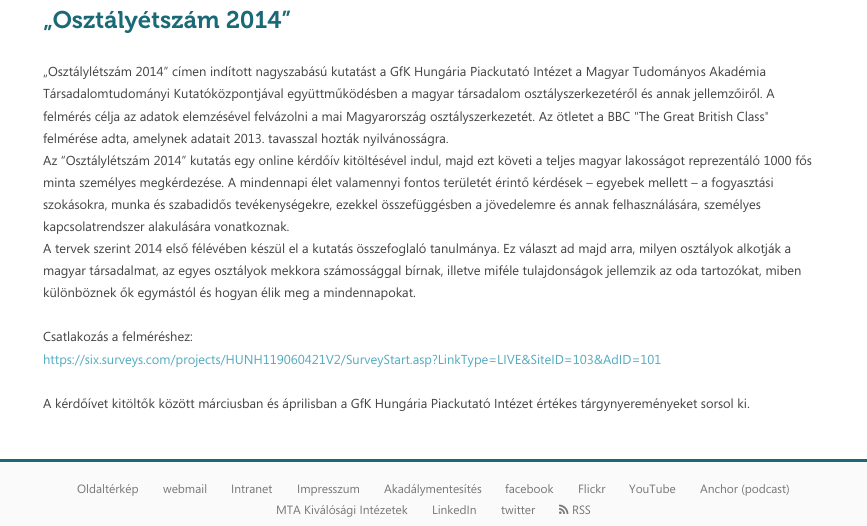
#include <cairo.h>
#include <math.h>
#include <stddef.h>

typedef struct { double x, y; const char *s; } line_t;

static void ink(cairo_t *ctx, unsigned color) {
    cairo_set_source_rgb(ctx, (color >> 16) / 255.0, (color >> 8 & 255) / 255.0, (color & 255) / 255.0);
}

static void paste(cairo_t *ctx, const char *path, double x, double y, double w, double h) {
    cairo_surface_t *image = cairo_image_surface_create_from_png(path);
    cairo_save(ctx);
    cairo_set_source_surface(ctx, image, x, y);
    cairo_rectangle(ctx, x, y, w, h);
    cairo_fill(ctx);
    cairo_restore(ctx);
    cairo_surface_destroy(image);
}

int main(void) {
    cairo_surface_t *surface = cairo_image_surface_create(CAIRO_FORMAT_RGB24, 867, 526);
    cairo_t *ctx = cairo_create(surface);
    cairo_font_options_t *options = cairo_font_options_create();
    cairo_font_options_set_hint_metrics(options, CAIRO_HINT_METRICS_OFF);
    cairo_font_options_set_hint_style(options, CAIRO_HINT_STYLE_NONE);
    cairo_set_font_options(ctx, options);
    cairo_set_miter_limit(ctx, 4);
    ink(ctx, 0xFFFFFF);
    cairo_paint(ctx);
    cairo_select_font_face(ctx, "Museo", CAIRO_FONT_SLANT_NORMAL, CAIRO_FONT_WEIGHT_NORMAL);
    cairo_set_font_size(ctx, 24);
    ink(ctx, 0x196976);
    cairo_move_to(ctx, 43, 28);
    cairo_show_text(ctx, "„Osztályétszám 2014”");
    cairo_select_font_face(ctx, "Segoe", CAIRO_FONT_SLANT_NORMAL, CAIRO_FONT_WEIGHT_NORMAL);
    cairo_set_font_size(ctx, 13);
    ink(ctx, 0x444444);
    {
        static const line_t items[] = {
            {43, 76, "„Osztálylétszám 2014” címen indított nagyszabású kutatást a GfK Hungária Piackutató Intézet a Magyar Tudományos Akadémia"},
            {43, 98, "Társadalomtudományi Kutatóközpontjával együttműködésben a magyar társadalom osztályszerkezetéről és annak jellemzőiről. A"},
            {43, 121, "felmérés célja az adatok elemzésével felvázolni a mai Magyarország osztályszerkezetét. Az ötletet a BBC \"The Great British Class\""},
            {43, 143, "felmérése adta, amelynek adatait 2013. tavasszal hozták nyilvánosságra."},
            {43, 165, "Az “Osztálylétszám 2014” kutatás egy online kérdőív kitöltésével indul, majd ezt követi a teljes magyar lakosságot reprezentáló 1000 fős"},
            {43, 187, "minta személyes megkérdezése. A mindennapi élet valamennyi fontos területét érintő kérdések – egyebek mellett – a fogyasztási"},
            {43, 209, "szokásokra, munka és szabadidős tevékenységekre, ezekkel összefüggésben a jövedelemre és annak felhasználására, személyes"},
            {43, 231, "kapcsolatrendszer alakulására vonatkoznak."},
            {43, 253, "A tervek szerint 2014 első félévében készül el a kutatás összefoglaló tanulmánya. Ez választ ad majd arra, milyen osztályok alkotják a"},
            {43, 275, "magyar társadalmat, az egyes osztályok mekkora számossággal bírnak, illetve miféle tulajdonságok jellemzik az oda tartozókat, miben"},
            {43, 297, "különböznek ők egymástól és hogyan élik meg a mindennapokat."},
            {43, 341, "Csatlakozás a felméréshez:"},
        };
        for (size_t i = 0; i < sizeof items / sizeof *items; i++) {
            cairo_move_to(ctx, items[i].x, items[i].y);
            cairo_show_text(ctx, items[i].s);
        }
    }
    ink(ctx, 0x54ABBF);
    cairo_move_to(ctx, 43, 364);
    cairo_show_text(ctx, "https://six.surveys.com/projects/HUNH119060421V2/SurveyStart.asp?LinkType=LIVE&SiteID=103&AdID=101");
    ink(ctx, 0x444444);
    cairo_move_to(ctx, 43, 408);
    cairo_show_text(ctx, "A kérdőívet kitöltők között márciusban és áprilisban a GfK Hungária Piackutató Intézet értékes tárgynyereményeket sorsol ki.");
    ink(ctx, 0xFAFAFA);
    cairo_rectangle(ctx, 0, 462, 867, 64);
    cairo_fill(ctx);
    ink(ctx, 0x196976);
    cairo_rectangle(ctx, 0, 459, 867, 3);
    cairo_fill(ctx);
    cairo_set_font_size(ctx, 12);
    ink(ctx, 0x777777);
    {
        static const line_t items[] = {
            {77, 493, "Oldaltérkép"},
            {163, 493, "webmail"},
            {231, 493, "Intranet"},
            {297, 493, "Impresszum"},
            {384, 493, "Akadálymentesítés"},
            {505, 493, "facebook"},
            {578, 493, "Flickr"},
            {629, 493, "YouTube"},
            {700, 493, "Anchor (podcast)"},
            {276, 514, "MTA Kiválósági Intézetek"},
            {432, 514, "LinkedIn"},
            {501, 514, "twitter"},
        };
        for (size_t i = 0; i < sizeof items / sizeof *items; i++) {
            cairo_move_to(ctx, items[i].x, items[i].y);
            cairo_show_text(ctx, items[i].s);
        }
    }
    paste(ctx, "media/1.png", 559, 504, 10, 10);
    cairo_move_to(ctx, 572, 514);
    cairo_show_text(ctx, "RSS");
    cairo_surface_write_to_png(surface, "image.png");
    cairo_font_options_destroy(options);
    cairo_destroy(ctx);
    cairo_surface_destroy(surface);
    return 0;
}
